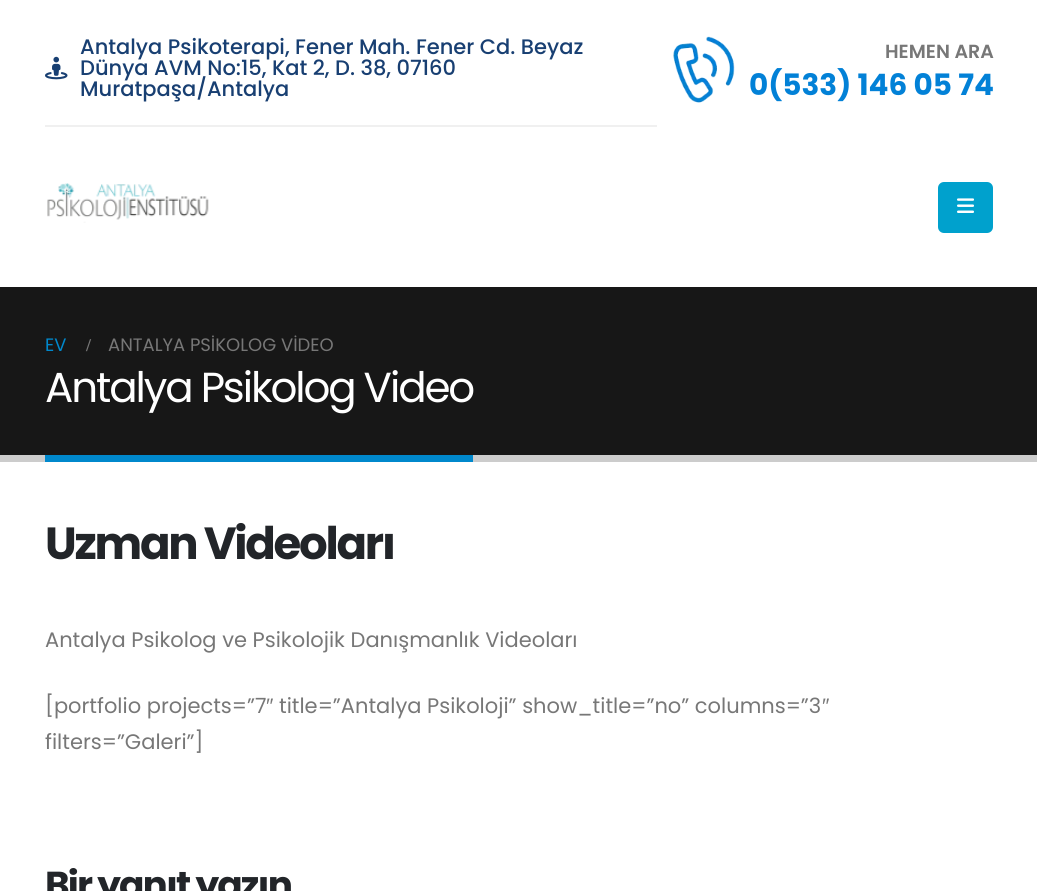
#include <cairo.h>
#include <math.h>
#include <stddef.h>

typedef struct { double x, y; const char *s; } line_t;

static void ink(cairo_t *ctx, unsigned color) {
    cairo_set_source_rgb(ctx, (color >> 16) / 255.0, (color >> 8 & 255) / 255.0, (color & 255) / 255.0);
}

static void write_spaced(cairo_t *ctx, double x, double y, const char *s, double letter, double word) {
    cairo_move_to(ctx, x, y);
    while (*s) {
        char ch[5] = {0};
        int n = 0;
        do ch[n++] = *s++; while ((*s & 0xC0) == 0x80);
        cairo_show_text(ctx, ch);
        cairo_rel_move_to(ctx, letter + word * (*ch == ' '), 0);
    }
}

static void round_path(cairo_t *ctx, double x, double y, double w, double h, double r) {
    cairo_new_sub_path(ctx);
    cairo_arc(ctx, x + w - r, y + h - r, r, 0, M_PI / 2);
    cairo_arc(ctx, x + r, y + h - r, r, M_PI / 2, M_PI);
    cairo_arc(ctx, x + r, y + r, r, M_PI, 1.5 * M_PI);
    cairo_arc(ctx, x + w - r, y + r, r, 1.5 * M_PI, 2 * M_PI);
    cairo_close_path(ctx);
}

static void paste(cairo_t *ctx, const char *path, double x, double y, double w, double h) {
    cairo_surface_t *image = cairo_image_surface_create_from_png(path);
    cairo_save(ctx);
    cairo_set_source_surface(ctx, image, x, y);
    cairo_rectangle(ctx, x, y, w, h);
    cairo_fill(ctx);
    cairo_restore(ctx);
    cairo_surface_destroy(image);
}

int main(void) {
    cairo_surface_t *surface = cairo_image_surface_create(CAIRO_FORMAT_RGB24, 1037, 891);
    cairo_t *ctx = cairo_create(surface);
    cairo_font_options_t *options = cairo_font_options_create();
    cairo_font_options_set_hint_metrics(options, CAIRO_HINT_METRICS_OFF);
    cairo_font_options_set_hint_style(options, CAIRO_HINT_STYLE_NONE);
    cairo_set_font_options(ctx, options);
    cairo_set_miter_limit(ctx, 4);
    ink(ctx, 0xFFFFFF);
    cairo_paint(ctx);
    ink(ctx, 0xF0F0F0);
    cairo_rectangle(ctx, 45, 125, 612, 2);
    cairo_fill(ctx);
    paste(ctx, "media/1.png", 45, 56, 23, 24);
    cairo_select_font_face(ctx, "Poppins Medium", CAIRO_FONT_SLANT_NORMAL, CAIRO_FONT_WEIGHT_NORMAL);
    cairo_set_font_size(ctx, 21);
    ink(ctx, 0x183F72);
    {
        static const line_t items[] = {
            {80, 54, "Antalya Psikoterapi, Fener Mah. Fener Cd. Beyaz"},
            {80, 75, "Dünya AVM No:15, Kat 2, D. 38, 07160"},
            {80, 96, "Muratpaşa/Antalya"},
        };
        for (size_t i = 0; i < sizeof items / sizeof *items; i++) {
            cairo_move_to(ctx, items[i].x, items[i].y);
            cairo_show_text(ctx, items[i].s);
        }
    }
    paste(ctx, "media/2.png", 673, 36, 62, 67);
    cairo_select_font_face(ctx, "Poppins SemiBold", CAIRO_FONT_SLANT_NORMAL, CAIRO_FONT_WEIGHT_NORMAL);
    cairo_set_font_size(ctx, 19);
    ink(ctx, 0x777777);
    cairo_move_to(ctx, 885, 58);
    cairo_show_text(ctx, "HEMEN ARA");
    cairo_select_font_face(ctx, "Poppins", CAIRO_FONT_SLANT_NORMAL, CAIRO_FONT_WEIGHT_BOLD);
    cairo_set_font_size(ctx, 29.5);
    ink(ctx, 0x0281D7);
    cairo_move_to(ctx, 749, 95);
    cairo_show_text(ctx, "0(533) 146 05 74");
    paste(ctx, "media/3.png", 47, 183, 162, 40);
    ink(ctx, 0x00A1CD);
    round_path(ctx, 938, 182, 55, 51, 6);
    cairo_fill(ctx);
    paste(ctx, "media/4.png", 957, 198, 17, 15);
    ink(ctx, 0x171717);
    cairo_rectangle(ctx, 0, 287, 1037, 168);
    cairo_fill(ctx);
    ink(ctx, 0xCCCCCC);
    cairo_rectangle(ctx, 0, 455, 1037, 7);
    cairo_fill(ctx);
    cairo_select_font_face(ctx, "Poppins", CAIRO_FONT_SLANT_NORMAL, CAIRO_FONT_WEIGHT_NORMAL);
    cairo_set_font_size(ctx, 18);
    ink(ctx, 0x0088CC);
    cairo_move_to(ctx, 45, 351);
    cairo_show_text(ctx, "EV");
    cairo_select_font_face(ctx, "Liberation Serif", CAIRO_FONT_SLANT_NORMAL, CAIRO_FONT_WEIGHT_BOLD);
    ink(ctx, 0x777777);
    cairo_move_to(ctx, 86, 351);
    cairo_show_text(ctx, "/");
    cairo_select_font_face(ctx, "Poppins", CAIRO_FONT_SLANT_NORMAL, CAIRO_FONT_WEIGHT_NORMAL);
    cairo_move_to(ctx, 108, 351);
    cairo_show_text(ctx, "ANTALYA PSİKOLOG VİDEO");
    cairo_set_font_size(ctx, 42);
    ink(ctx, 0xFFFFFF);
    write_spaced(ctx, 45, 402, "Antalya Psikolog Video", -2.1, 0);
    ink(ctx, 0x0088CC);
    cairo_rectangle(ctx, 45, 455, 428, 7);
    cairo_fill(ctx);
    cairo_select_font_face(ctx, "Poppins", CAIRO_FONT_SLANT_NORMAL, CAIRO_FONT_WEIGHT_BOLD);
    cairo_set_font_size(ctx, 45);
    ink(ctx, 0x222529);
    write_spaced(ctx, 45, 559, "Uzman Videoları", -2.25, 0);
    cairo_select_font_face(ctx, "Poppins", CAIRO_FONT_SLANT_NORMAL, CAIRO_FONT_WEIGHT_NORMAL);
    cairo_set_font_size(ctx, 21);
    ink(ctx, 0x777777);
    cairo_move_to(ctx, 45, 647);
    cairo_show_text(ctx, "Antalya Psikolog ve Psikolojik Danışmanlık Videoları");
    cairo_move_to(ctx, 45, 713);
    cairo_show_text(ctx, "[portfolio projects=”7");
    cairo_select_font_face(ctx, "Liberation Sans", CAIRO_FONT_SLANT_NORMAL, CAIRO_FONT_WEIGHT_NORMAL);
    cairo_move_to(ctx, 266, 713);
    cairo_show_text(ctx, "″");
    cairo_select_font_face(ctx, "Poppins", CAIRO_FONT_SLANT_NORMAL, CAIRO_FONT_WEIGHT_NORMAL);
    cairo_move_to(ctx, 279, 713);
    cairo_show_text(ctx, "title=”Antalya Psikoloji” show_title=”no” columns=”3");
    cairo_select_font_face(ctx, "Liberation Sans", CAIRO_FONT_SLANT_NORMAL, CAIRO_FONT_WEIGHT_NORMAL);
    cairo_move_to(ctx, 822, 713);
    cairo_show_text(ctx, "″");
    cairo_select_font_face(ctx, "Poppins", CAIRO_FONT_SLANT_NORMAL, CAIRO_FONT_WEIGHT_NORMAL);
    cairo_move_to(ctx, 45, 749);
    cairo_show_text(ctx, "filters=”Galeri”]");
    cairo_select_font_face(ctx, "Poppins", CAIRO_FONT_SLANT_NORMAL, CAIRO_FONT_WEIGHT_BOLD);
    cairo_set_font_size(ctx, 37.5);
    ink(ctx, 0x222529);
    write_spaced(ctx, 45, 898, "Bir yanıt yazın", -1.9, 0);
    cairo_surface_write_to_png(surface, "image.png");
    cairo_font_options_destroy(options);
    cairo_destroy(ctx);
    cairo_surface_destroy(surface);
    return 0;
}
